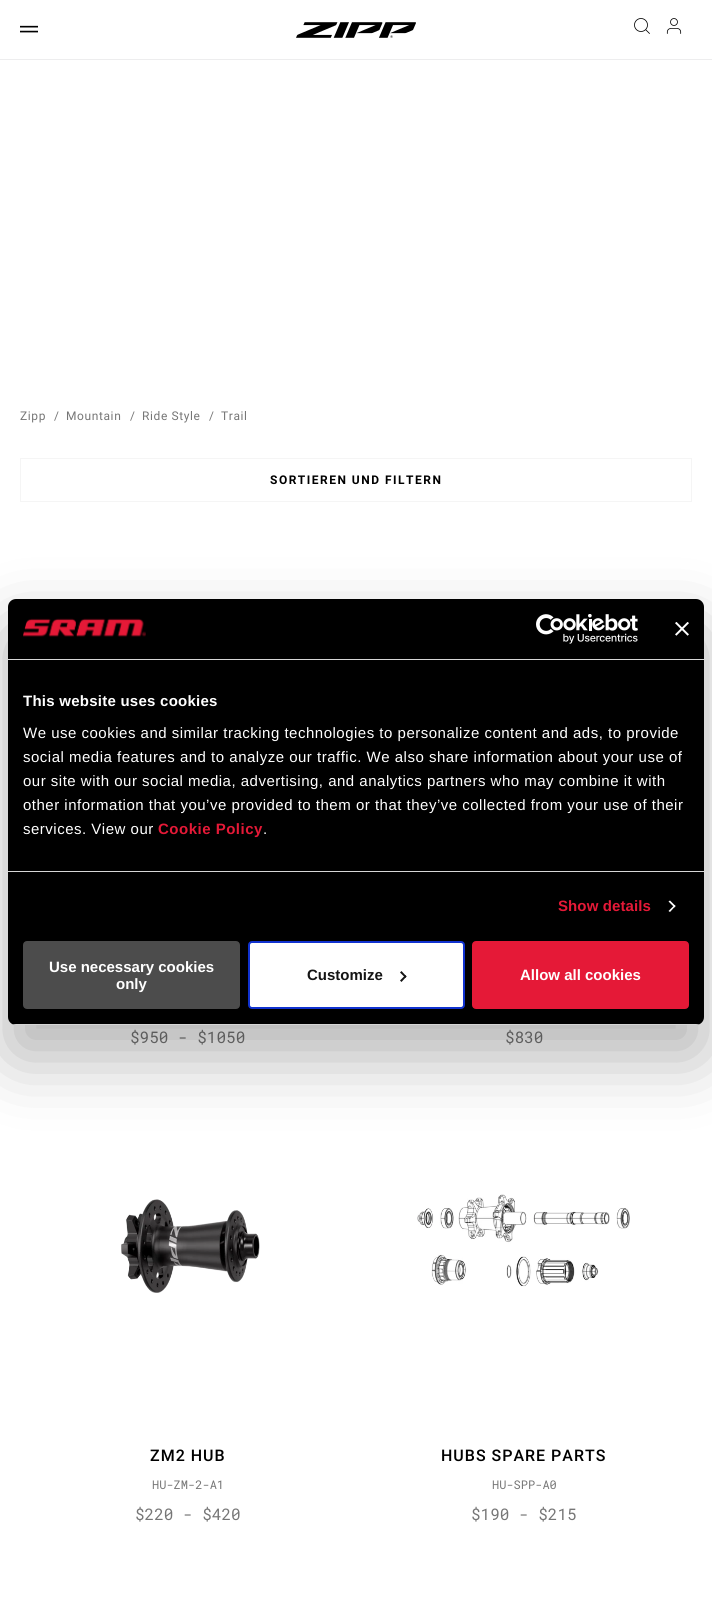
#include <cairo.h>
#include <math.h>
#include <stddef.h>

typedef struct { double x, y; const char *s; } line_t;

static void ink(cairo_t *ctx, unsigned color) {
    cairo_set_source_rgb(ctx, (color >> 16) / 255.0, (color >> 8 & 255) / 255.0, (color & 255) / 255.0);
}

static void write_spaced(cairo_t *ctx, double x, double y, const char *s, double letter, double word) {
    cairo_move_to(ctx, x, y);
    while (*s) {
        char ch[5] = {0};
        int n = 0;
        do ch[n++] = *s++; while ((*s & 0xC0) == 0x80);
        cairo_show_text(ctx, ch);
        cairo_rel_move_to(ctx, letter + word * (*ch == ' '), 0);
    }
}

static void round_path(cairo_t *ctx, double x, double y, double w, double h, double r) {
    cairo_new_sub_path(ctx);
    cairo_arc(ctx, x + w - r, y + h - r, r, 0, M_PI / 2);
    cairo_arc(ctx, x + r, y + h - r, r, M_PI / 2, M_PI);
    cairo_arc(ctx, x + r, y + r, r, M_PI, 1.5 * M_PI);
    cairo_arc(ctx, x + w - r, y + r, r, 1.5 * M_PI, 2 * M_PI);
    cairo_close_path(ctx);
}

static void blur_box(cairo_t *ctx, double x, double y, double w, double h, double r, double blur, double alpha) {
    cairo_push_group_with_content(ctx, CAIRO_CONTENT_ALPHA);
    cairo_set_operator(ctx, CAIRO_OPERATOR_SOURCE);
    for (int i = 15; i >= -15 && fmin(w, h) + blur * i / 3 > 0; i -= 2) {
        double e = blur * i / 6;
        cairo_set_source_rgba(ctx, 0, 0, 0, alpha * erfc((i - 1) / 8.5) / 2);
        round_path(ctx, x - e, y - e, w + 2 * e, h + 2 * e, fmax(0, fmin(r + e + blur * .6, fmin(w, h) / 2 + e)));
        cairo_fill(ctx);
    }
    cairo_pattern_t *soft = cairo_pop_group(ctx);
    cairo_mask(ctx, soft);
    cairo_pattern_destroy(soft);
}

static void paste(cairo_t *ctx, const char *path, double x, double y, double w, double h) {
    cairo_surface_t *image = cairo_image_surface_create_from_png(path);
    cairo_save(ctx);
    cairo_set_source_surface(ctx, image, x, y);
    cairo_rectangle(ctx, x, y, w, h);
    cairo_fill(ctx);
    cairo_restore(ctx);
    cairo_surface_destroy(image);
}

int main(void) {
    cairo_surface_t *surface = cairo_image_surface_create(CAIRO_FORMAT_RGB24, 712, 1623);
    cairo_t *ctx = cairo_create(surface);
    cairo_font_options_t *options = cairo_font_options_create();
    cairo_font_options_set_hint_metrics(options, CAIRO_HINT_METRICS_OFF);
    cairo_font_options_set_hint_style(options, CAIRO_HINT_STYLE_NONE);
    cairo_set_font_options(ctx, options);
    cairo_set_miter_limit(ctx, 4);
    ink(ctx, 0xFFFFFF);
    cairo_paint(ctx);
    ink(ctx, 0xEDEDEE);
    cairo_rectangle(ctx, 0, 59, 712, 1);
    cairo_fill(ctx);
    paste(ctx, "media/1.png", 20, 25, 18, 8);
    cairo_arc(ctx, 641, 25, 6.5, 0, 2 * M_PI);
    ink(ctx, 0x000000);
    cairo_set_line_width(ctx, 0.8);
    cairo_stroke(ctx);
    cairo_new_path(ctx);
    cairo_move_to(ctx, 649.5, 33.5);
    cairo_line_to(ctx, 646, 30);
    cairo_set_line_cap(ctx, CAIRO_LINE_CAP_ROUND);
    cairo_set_line_join(ctx, CAIRO_LINE_JOIN_ROUND);
    cairo_stroke(ctx);
    paste(ctx, "media/2.png", 666, 18, 16, 16);
    paste(ctx, "media/3.png", 296, 22, 120, 16);
    cairo_select_font_face(ctx, "Roboto", CAIRO_FONT_SLANT_NORMAL, CAIRO_FONT_WEIGHT_NORMAL);
    cairo_set_font_size(ctx, 12);
    ink(ctx, 0x767676);
    {
        static const line_t items[] = {
            {20, 420, "Zipp"},
            {54, 420, "/"},
            {66, 420, "Mountain"},
            {130, 420, "/"},
            {142, 420, "Ride Style"},
            {209, 420, "/"},
            {221, 420, "Trail"},
        };
        for (size_t i = 0; i < sizeof items / sizeof *items; i++) {
            write_spaced(ctx, items[i].x, items[i].y, items[i].s, 0.6, 0);
        }
    }
    cairo_rectangle(ctx, 20.5, 458.5, 671, 43);
    ink(ctx, 0xF5F5F5);
    cairo_set_line_width(ctx, 1);
    cairo_set_line_cap(ctx, CAIRO_LINE_CAP_BUTT);
    cairo_set_line_join(ctx, CAIRO_LINE_JOIN_MITER);
    cairo_stroke(ctx);
    cairo_select_font_face(ctx, "Roboto", CAIRO_FONT_SLANT_NORMAL, CAIRO_FONT_WEIGHT_BOLD);
    ink(ctx, 0x000000);
    write_spaced(ctx, 270, 484, "SORTIEREN UND FILTERN", 1.5, 0);
    cairo_select_font_face(ctx, "Roboto Mono", CAIRO_FONT_SLANT_NORMAL, CAIRO_FONT_WEIGHT_NORMAL);
    cairo_set_font_size(ctx, 16);
    ink(ctx, 0x767676);
    cairo_move_to(ctx, 130, 1043);
    cairo_show_text(ctx, "$950 - $1050");
    cairo_move_to(ctx, 505, 1043);
    cairo_show_text(ctx, "$830");
    paste(ctx, "media/4.png", 121, 1199, 139, 94);
    cairo_select_font_face(ctx, "Roboto Medium", CAIRO_FONT_SLANT_NORMAL, CAIRO_FONT_WEIGHT_NORMAL);
    ink(ctx, 0x000000);
    write_spaced(ctx, 150, 1461, "ZM2 HUB", 1, 0);
    cairo_select_font_face(ctx, "Roboto Mono", CAIRO_FONT_SLANT_NORMAL, CAIRO_FONT_WEIGHT_NORMAL);
    cairo_set_font_size(ctx, 12);
    ink(ctx, 0x767676);
    cairo_move_to(ctx, 152, 1489);
    cairo_show_text(ctx, "HU-ZM-2-A1");
    cairo_set_font_size(ctx, 16);
    cairo_move_to(ctx, 135, 1520);
    cairo_show_text(ctx, "$220 - $420");
    paste(ctx, "media/5.png", 417, 1194, 213, 93);
    cairo_select_font_face(ctx, "Roboto Medium", CAIRO_FONT_SLANT_NORMAL, CAIRO_FONT_WEIGHT_NORMAL);
    ink(ctx, 0x000000);
    write_spaced(ctx, 441, 1461, "HUBS SPARE PARTS", 1, 0);
    cairo_select_font_face(ctx, "Roboto Mono", CAIRO_FONT_SLANT_NORMAL, CAIRO_FONT_WEIGHT_NORMAL);
    cairo_set_font_size(ctx, 12);
    ink(ctx, 0x767676);
    cairo_move_to(ctx, 492, 1489);
    cairo_show_text(ctx, "HU-SPP-A0");
    cairo_set_font_size(ctx, 16);
    cairo_move_to(ctx, 471, 1520);
    cairo_show_text(ctx, "$190 - $215");
    ink(ctx, 0x000000);
    blur_box(ctx, 8, 631, 696, 426, 8, 34, 0.3);
    ink(ctx, 0x000000);
    round_path(ctx, 8, 599, 696, 426, 8);
    cairo_fill(ctx);
    ink(ctx, 0xD6D6D6);
    cairo_rectangle(ctx, 8, 659, 696, 1);
    cairo_fill(ctx);
    paste(ctx, "media/6.png", 23, 618, 123, 19);
    paste(ctx, "media/7.png", 536, 614, 102, 30);
    paste(ctx, "media/8.png", 675, 622, 14, 14);
    cairo_rectangle(ctx, 8, 871, 696, 1);
    cairo_fill(ctx);
    cairo_select_font_face(ctx, "Liberation Sans", CAIRO_FONT_SLANT_NORMAL, CAIRO_FONT_WEIGHT_BOLD);
    cairo_set_font_size(ctx, 15);
    ink(ctx, 0xFFFFFF);
    write_spaced(ctx, 23, 706, "This website uses cookies", 0.25, 0);
    cairo_select_font_face(ctx, "Liberation Sans", CAIRO_FONT_SLANT_NORMAL, CAIRO_FONT_WEIGHT_NORMAL);
    {
        static const line_t items[] = {
            {23, 738, "We use cookies and similar tracking technologies to personalize content and ads, to provide"},
            {23, 762, "social media features and to analyze our traffic. We also share information about your use of"},
            {23, 786, "our site with our social media, advertising, and analytics partners who may combine it with"},
            {23, 810, "other information that you’ve provided to them or that they’ve collected from your use of their"},
            {23, 834, "services. View our"},
        };
        for (size_t i = 0; i < sizeof items / sizeof *items; i++) {
            write_spaced(ctx, items[i].x, items[i].y, items[i].s, 0.5, 0);
        }
    }
    cairo_select_font_face(ctx, "Liberation Sans", CAIRO_FONT_SLANT_NORMAL, CAIRO_FONT_WEIGHT_BOLD);
    ink(ctx, 0xE51937);
    write_spaced(ctx, 158, 834, "Cookie Policy", 0.5, 0);
    cairo_select_font_face(ctx, "Liberation Sans", CAIRO_FONT_SLANT_NORMAL, CAIRO_FONT_WEIGHT_NORMAL);
    ink(ctx, 0xFFFFFF);
    write_spaced(ctx, 263, 834, ".", 0.5, 0);
    cairo_select_font_face(ctx, "Liberation Sans", CAIRO_FONT_SLANT_NORMAL, CAIRO_FONT_WEIGHT_BOLD);
    ink(ctx, 0xE51937);
    write_spaced(ctx, 558, 911, "Show details", 0.1, 0);
    ink(ctx, 0xFFFFFF);
    cairo_new_path(ctx);
    cairo_move_to(ctx, 670, 900.5);
    cairo_line_to(ctx, 675.5, 906);
    cairo_line_to(ctx, 674.5, 907.5);
    cairo_line_to(ctx, 668.5, 901.5);
    cairo_close_path(ctx);
    cairo_fill(ctx);
    cairo_new_path(ctx);
    cairo_move_to(ctx, 674.5, 905);
    cairo_line_to(ctx, 675.5, 906);
    cairo_line_to(ctx, 670, 912);
    cairo_line_to(ctx, 668.5, 911);
    cairo_close_path(ctx);
    cairo_fill(ctx);
    cairo_save(ctx);
    round_path(ctx, 8, 599, 696, 426, 8);
    cairo_clip(ctx);
    ink(ctx, 0xD6D6D6);
    cairo_rectangle(ctx, 8, 1024, 696, 1);
    cairo_fill(ctx);
    cairo_restore(ctx);
    ink(ctx, 0x4C4C4C);
    round_path(ctx, 24, 942, 215, 66, 3);
    cairo_fill_preserve(ctx);
    cairo_set_line_width(ctx, 2);
    cairo_stroke(ctx);
    ink(ctx, 0xFFFFFF);
    cairo_move_to(ctx, 49, 972);
    cairo_show_text(ctx, "Use necessary cookies");
    cairo_move_to(ctx, 116, 989);
    cairo_show_text(ctx, "only");
    round_path(ctx, 249, 942, 215, 66, 3);
    cairo_fill_preserve(ctx);
    ink(ctx, 0x1032CF);
    cairo_stroke(ctx);
    ink(ctx, 0x141414);
    cairo_move_to(ctx, 307, 980);
    cairo_show_text(ctx, "Customize");
    cairo_new_path(ctx);
    cairo_move_to(ctx, 401.5, 971);
    cairo_line_to(ctx, 406.5, 976.5);
    cairo_line_to(ctx, 405.5, 978);
    cairo_line_to(ctx, 400, 972.5);
    cairo_close_path(ctx);
    cairo_fill(ctx);
    cairo_new_path(ctx);
    cairo_move_to(ctx, 405.5, 975);
    cairo_line_to(ctx, 406.5, 976.5);
    cairo_line_to(ctx, 401.5, 982);
    cairo_line_to(ctx, 400, 980.5);
    cairo_close_path(ctx);
    cairo_fill(ctx);
    ink(ctx, 0xE51937);
    round_path(ctx, 473, 942, 215, 66, 3);
    cairo_fill_preserve(ctx);
    cairo_stroke(ctx);
    ink(ctx, 0xFFFFFF);
    cairo_move_to(ctx, 520, 980);
    cairo_show_text(ctx, "Allow all cookies");
    cairo_surface_write_to_png(surface, "image.png");
    cairo_font_options_destroy(options);
    cairo_destroy(ctx);
    cairo_surface_destroy(surface);
    return 0;
}
